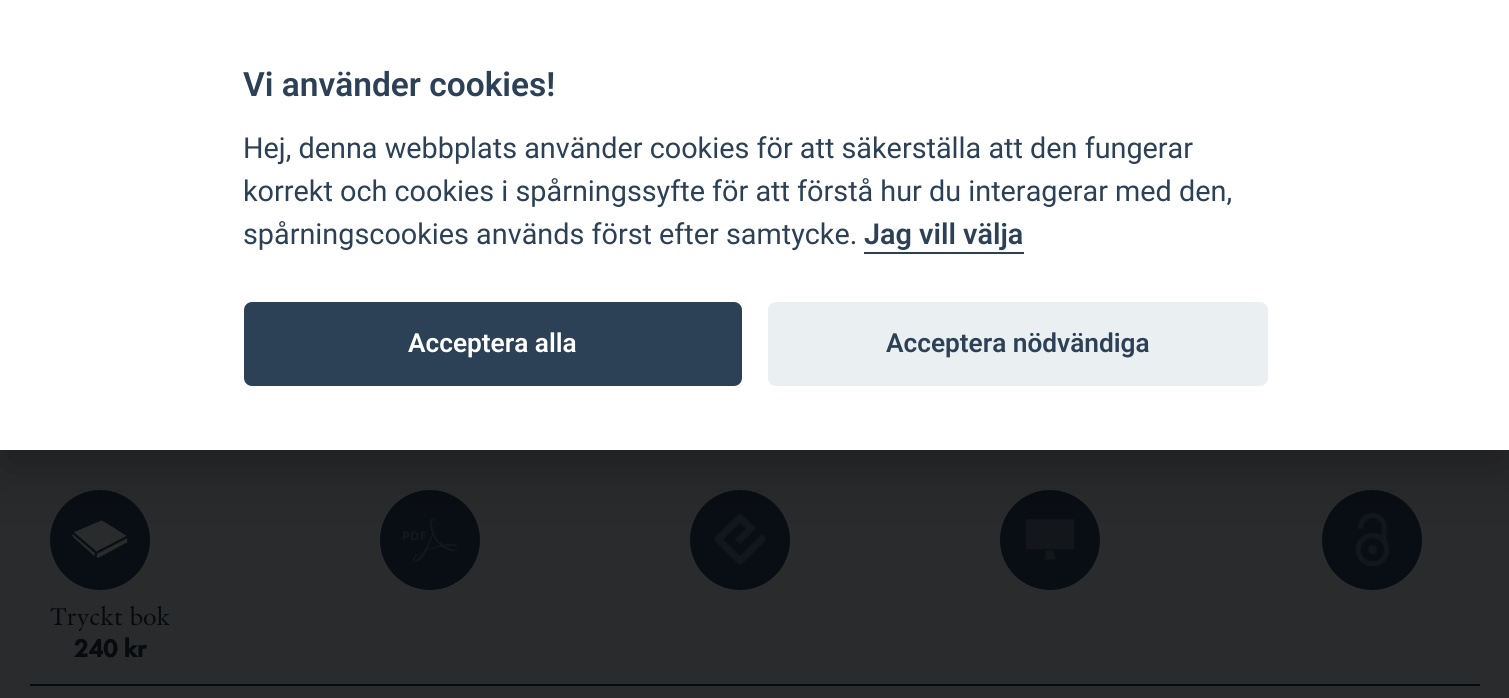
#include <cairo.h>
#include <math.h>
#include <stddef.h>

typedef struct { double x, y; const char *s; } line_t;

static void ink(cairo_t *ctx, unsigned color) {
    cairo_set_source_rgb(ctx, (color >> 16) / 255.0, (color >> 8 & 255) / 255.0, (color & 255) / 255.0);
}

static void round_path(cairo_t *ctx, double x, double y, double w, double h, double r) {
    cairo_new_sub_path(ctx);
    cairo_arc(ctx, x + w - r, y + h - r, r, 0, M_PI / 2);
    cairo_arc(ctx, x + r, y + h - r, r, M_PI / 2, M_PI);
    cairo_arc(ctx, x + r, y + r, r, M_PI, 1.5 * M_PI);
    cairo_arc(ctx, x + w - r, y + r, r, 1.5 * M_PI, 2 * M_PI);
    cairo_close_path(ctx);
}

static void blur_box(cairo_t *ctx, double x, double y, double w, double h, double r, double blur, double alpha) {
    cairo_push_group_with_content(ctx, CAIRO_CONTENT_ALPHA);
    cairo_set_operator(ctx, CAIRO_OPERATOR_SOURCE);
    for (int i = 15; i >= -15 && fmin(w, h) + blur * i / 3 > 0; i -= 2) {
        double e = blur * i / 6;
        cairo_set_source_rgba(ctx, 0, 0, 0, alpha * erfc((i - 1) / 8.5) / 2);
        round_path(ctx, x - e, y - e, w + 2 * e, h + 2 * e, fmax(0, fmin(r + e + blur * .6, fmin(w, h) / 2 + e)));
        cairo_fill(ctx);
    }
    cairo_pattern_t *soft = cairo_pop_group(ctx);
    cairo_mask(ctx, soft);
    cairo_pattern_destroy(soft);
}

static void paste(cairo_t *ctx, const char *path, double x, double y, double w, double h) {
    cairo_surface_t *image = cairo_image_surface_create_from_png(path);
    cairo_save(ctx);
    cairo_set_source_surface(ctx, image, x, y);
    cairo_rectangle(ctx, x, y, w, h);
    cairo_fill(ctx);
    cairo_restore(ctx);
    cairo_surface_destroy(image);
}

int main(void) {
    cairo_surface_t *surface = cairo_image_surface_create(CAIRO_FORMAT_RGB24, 1509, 698);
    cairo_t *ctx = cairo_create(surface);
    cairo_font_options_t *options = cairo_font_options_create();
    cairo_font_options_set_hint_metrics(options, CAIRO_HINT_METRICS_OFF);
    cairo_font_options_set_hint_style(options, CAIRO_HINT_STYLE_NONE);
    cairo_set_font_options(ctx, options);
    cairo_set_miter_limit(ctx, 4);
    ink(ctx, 0x2A2B2D);
    cairo_paint(ctx);
    ink(ctx, 0x090E14);
    cairo_arc(ctx, 430, 540, 49, 0, 2 * M_PI);
    cairo_fill_preserve(ctx);
    cairo_stroke(ctx);
    paste(ctx, "media/1.png", 402, 518, 56, 44);
    cairo_arc(ctx, 740, 540, 49, 0, 2 * M_PI);
    cairo_fill_preserve(ctx);
    cairo_stroke(ctx);
    paste(ctx, "media/2.png", 714, 513, 52, 52);
    cairo_arc(ctx, 1050, 540, 49, 0, 2 * M_PI);
    cairo_fill_preserve(ctx);
    cairo_stroke(ctx);
    paste(ctx, "media/3.png", 1024, 518, 52, 42);
    cairo_arc(ctx, 1372, 540, 49, 0, 2 * M_PI);
    cairo_fill_preserve(ctx);
    cairo_stroke(ctx);
    paste(ctx, "media/4.png", 1355, 512, 35, 55);
    cairo_arc(ctx, 100, 540, 49, 0, 2 * M_PI);
    cairo_fill_preserve(ctx);
    cairo_stroke(ctx);
    paste(ctx, "media/5.png", 72, 520, 56, 38);
    ink(ctx, 0x020203);
    blur_box(ctx, 0, 20, 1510, 450, 0, 30, 0.28);
    ink(ctx, 0xFFFFFF);
    cairo_rectangle(ctx, 0, 0, 1509, 450);
    cairo_fill(ctx);
    cairo_select_font_face(ctx, "Roboto SemiBold", CAIRO_FONT_SLANT_NORMAL, CAIRO_FONT_WEIGHT_NORMAL);
    cairo_set_font_size(ctx, 33.5);
    ink(ctx, 0x2D4156);
    cairo_move_to(ctx, 243, 96);
    cairo_show_text(ctx, "Vi använder cookies!");
    cairo_select_font_face(ctx, "Roboto", CAIRO_FONT_SLANT_NORMAL, CAIRO_FONT_WEIGHT_NORMAL);
    cairo_set_font_size(ctx, 28.8);
    {
        static const line_t items[] = {
            {243, 158, "Hej, denna webbplats använder cookies för att säkerställa att den fungerar"},
            {243, 201, "korrekt och cookies i spårningssyfte för att förstå hur du interagerar med den,"},
            {243, 244, "spårningscookies används först efter samtycke."},
        };
        for (size_t i = 0; i < sizeof items / sizeof *items; i++) {
            cairo_move_to(ctx, items[i].x, items[i].y);
            cairo_show_text(ctx, items[i].s);
        }
    }
    cairo_select_font_face(ctx, "Roboto SemiBold", CAIRO_FONT_SLANT_NORMAL, CAIRO_FONT_WEIGHT_NORMAL);
    cairo_move_to(ctx, 864, 244);
    cairo_show_text(ctx, "Jag vill välja");
    cairo_rectangle(ctx, 864, 252, 160, 2);
    cairo_fill(ctx);
    round_path(ctx, 244, 302, 498, 84, 8);
    cairo_fill(ctx);
    cairo_set_font_size(ctx, 26.25);
    ink(ctx, 0xFFFFFF);
    cairo_move_to(ctx, 408, 352);
    cairo_show_text(ctx, "Acceptera alla");
    ink(ctx, 0xEAEFF2);
    round_path(ctx, 768, 302, 500, 84, 8);
    cairo_fill(ctx);
    ink(ctx, 0x2D4156);
    cairo_move_to(ctx, 886, 352);
    cairo_show_text(ctx, "Acceptera nödvändiga");
    ink(ctx, 0x080B0D);
    cairo_rectangle(ctx, 30, 684, 1450, 2);
    cairo_fill(ctx);
    cairo_select_font_face(ctx, "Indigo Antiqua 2", CAIRO_FONT_SLANT_NORMAL, CAIRO_FONT_WEIGHT_NORMAL);
    cairo_set_font_size(ctx, 25.5);
    cairo_move_to(ctx, 50, 625);
    cairo_show_text(ctx, "Tryckt bok");
    cairo_select_font_face(ctx, "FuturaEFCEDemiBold", CAIRO_FONT_SLANT_NORMAL, CAIRO_FONT_WEIGHT_BOLD);
    cairo_move_to(ctx, 74, 657);
    cairo_show_text(ctx, "240 kr");
    cairo_surface_write_to_png(surface, "image.png");
    cairo_font_options_destroy(options);
    cairo_destroy(ctx);
    cairo_surface_destroy(surface);
    return 0;
}
